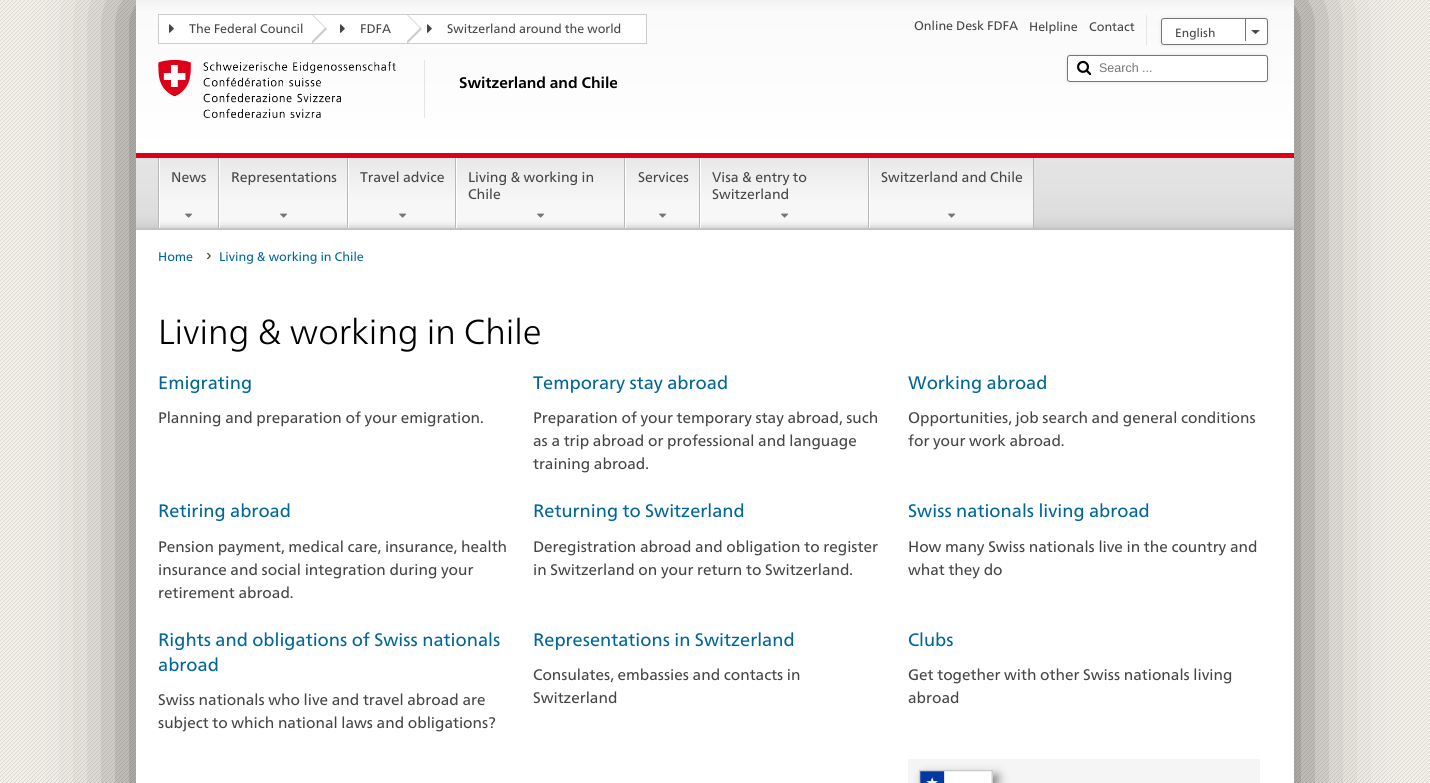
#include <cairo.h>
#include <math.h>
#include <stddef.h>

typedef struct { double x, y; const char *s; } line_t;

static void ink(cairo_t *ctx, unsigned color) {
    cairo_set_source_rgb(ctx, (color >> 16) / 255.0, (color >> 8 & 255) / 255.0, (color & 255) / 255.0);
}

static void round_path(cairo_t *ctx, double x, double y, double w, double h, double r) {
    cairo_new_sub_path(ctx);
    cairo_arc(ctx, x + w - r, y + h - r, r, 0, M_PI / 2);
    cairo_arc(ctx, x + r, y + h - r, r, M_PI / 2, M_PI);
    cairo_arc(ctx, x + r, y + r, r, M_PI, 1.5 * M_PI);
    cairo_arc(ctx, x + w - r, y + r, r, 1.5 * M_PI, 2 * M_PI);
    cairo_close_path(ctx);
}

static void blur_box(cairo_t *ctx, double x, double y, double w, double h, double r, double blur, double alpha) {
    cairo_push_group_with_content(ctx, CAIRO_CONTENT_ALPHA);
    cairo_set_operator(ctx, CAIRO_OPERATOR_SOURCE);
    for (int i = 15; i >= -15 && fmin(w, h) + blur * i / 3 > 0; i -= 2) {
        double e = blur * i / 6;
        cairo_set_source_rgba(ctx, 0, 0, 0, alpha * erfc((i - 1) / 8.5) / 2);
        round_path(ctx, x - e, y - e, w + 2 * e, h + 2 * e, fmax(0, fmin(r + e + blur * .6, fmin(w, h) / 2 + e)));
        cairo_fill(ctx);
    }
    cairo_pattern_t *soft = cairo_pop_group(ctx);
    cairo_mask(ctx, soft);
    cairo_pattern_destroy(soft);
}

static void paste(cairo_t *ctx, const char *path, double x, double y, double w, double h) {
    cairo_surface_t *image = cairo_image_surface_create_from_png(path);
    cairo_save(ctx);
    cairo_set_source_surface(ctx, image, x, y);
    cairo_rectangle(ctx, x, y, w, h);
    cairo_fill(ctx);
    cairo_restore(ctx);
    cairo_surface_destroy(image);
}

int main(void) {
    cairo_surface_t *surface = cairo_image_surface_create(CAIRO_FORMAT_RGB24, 1430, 783);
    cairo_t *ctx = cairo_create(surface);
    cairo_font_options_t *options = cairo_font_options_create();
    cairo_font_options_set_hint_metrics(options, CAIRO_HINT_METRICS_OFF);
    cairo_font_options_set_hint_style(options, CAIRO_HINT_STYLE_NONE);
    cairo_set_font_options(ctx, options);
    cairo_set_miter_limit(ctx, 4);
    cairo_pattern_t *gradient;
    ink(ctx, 0xFFFFFF);
    cairo_paint(ctx);
    paste(ctx, "media/1.png", 0, 0, 1430, 783);
    ink(ctx, 0x000000);
    blur_box(ctx, 136, 0, 1158, 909, 0, 42, 0.6);
    ink(ctx, 0xFFFFFF);
    cairo_rectangle(ctx, 136, 230, 1158, 553);
    cairo_fill(ctx);
    gradient = cairo_pattern_create_linear(715, 0, 715, 153);
    cairo_pattern_add_color_stop_rgba(gradient, 0, 0.949, 0.949, 0.949, 1);
    cairo_pattern_add_color_stop_rgba(gradient, 0.07, 0.98, 0.98, 0.98, 1);
    cairo_pattern_add_color_stop_rgba(gradient, 1, 1, 1, 1, 1);
    cairo_set_source(ctx, gradient);
    cairo_pattern_destroy(gradient);
    cairo_rectangle(ctx, 136, 0, 1158, 153);
    cairo_fill(ctx);
    ink(ctx, 0xFFFFFF);
    cairo_rectangle(ctx, 158.5, 14.5, 488, 29);
    cairo_fill_preserve(ctx);
    ink(ctx, 0xCCCCCC);
    cairo_set_line_width(ctx, 1);
    cairo_stroke(ctx);
    cairo_new_path(ctx);
    cairo_move_to(ctx, 312, 44);
    cairo_line_to(ctx, 312, 14);
    cairo_line_to(ctx, 327, 29);
    cairo_close_path(ctx);
    cairo_fill(ctx);
    paste(ctx, "media/2.png", 169, 24, 5, 9);
    cairo_select_font_face(ctx, "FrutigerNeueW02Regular", CAIRO_FONT_SLANT_NORMAL, CAIRO_FONT_WEIGHT_NORMAL);
    cairo_set_font_size(ctx, 12.5);
    ink(ctx, 0x454545);
    cairo_move_to(ctx, 189, 33);
    cairo_show_text(ctx, "The Federal Council");
    ink(ctx, 0xFFFFFF);
    cairo_new_path(ctx);
    cairo_move_to(ctx, 312, 41);
    cairo_line_to(ctx, 312, 15);
    cairo_line_to(ctx, 325, 28);
    cairo_close_path(ctx);
    cairo_fill(ctx);
    ink(ctx, 0xCCCCCC);
    cairo_new_path(ctx);
    cairo_move_to(ctx, 407, 44);
    cairo_line_to(ctx, 407, 14);
    cairo_line_to(ctx, 422, 29);
    cairo_close_path(ctx);
    cairo_fill(ctx);
    paste(ctx, "media/2.png", 340, 24, 5, 9);
    ink(ctx, 0x454545);
    cairo_move_to(ctx, 360, 33);
    cairo_show_text(ctx, "FDFA");
    ink(ctx, 0xFFFFFF);
    cairo_new_path(ctx);
    cairo_move_to(ctx, 407, 41);
    cairo_line_to(ctx, 407, 15);
    cairo_line_to(ctx, 420, 28);
    cairo_close_path(ctx);
    cairo_fill(ctx);
    paste(ctx, "media/2.png", 427, 24, 5, 9);
    ink(ctx, 0x454545);
    {
        static const line_t items[] = {
            {447, 33, "Switzerland around the world"},
            {914, 30, "Online Desk FDFA"},
            {1029, 31, "Helpline"},
            {1089, 31, "Contact"},
        };
        for (size_t i = 0; i < sizeof items / sizeof *items; i++) {
            cairo_move_to(ctx, items[i].x, items[i].y);
            cairo_show_text(ctx, items[i].s);
        }
    }
    ink(ctx, 0xE5E5E5);
    cairo_rectangle(ctx, 1146, 15, 1, 30);
    cairo_fill(ctx);
    ink(ctx, 0x000000);
    blur_box(ctx, 1161, 18, 107, 27, 3, 2, 0.1);
    ink(ctx, 0xFFFFFF);
    round_path(ctx, 1161.5, 18.5, 106, 26, 2.5);
    cairo_fill_preserve(ctx);
    ink(ctx, 0x757575);
    cairo_stroke(ctx);
    cairo_set_font_size(ctx, 12);
    ink(ctx, 0x454545);
    cairo_move_to(ctx, 1175, 37);
    cairo_show_text(ctx, "English");
    paste(ctx, "media/3.png", 1251, 30, 9, 4);
    ink(ctx, 0x757575);
    cairo_rectangle(ctx, 1245, 18, 1, 23);
    cairo_fill(ctx);
    ink(ctx, 0x000000);
    blur_box(ctx, 1067, 55, 201, 27, 3, 2, 0.1);
    ink(ctx, 0xFFFFFF);
    round_path(ctx, 1067.5, 55.5, 200, 26, 2.5);
    cairo_fill_preserve(ctx);
    ink(ctx, 0x757575);
    cairo_stroke(ctx);
    paste(ctx, "media/4.png", 1077, 60, 14, 16);
    cairo_select_font_face(ctx, "Liberation Sans", CAIRO_FONT_SLANT_NORMAL, CAIRO_FONT_WEIGHT_NORMAL);
    cairo_set_font_size(ctx, 12.5);
    cairo_move_to(ctx, 1099, 72);
    cairo_show_text(ctx, "Search ...");
    paste(ctx, "media/5.png", 158, 60, 238, 58);
    ink(ctx, 0xE5E5E5);
    cairo_rectangle(ctx, 424, 60, 1, 58);
    cairo_fill(ctx);
    cairo_select_font_face(ctx, "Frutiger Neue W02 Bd", CAIRO_FONT_SLANT_NORMAL, CAIRO_FONT_WEIGHT_BOLD);
    cairo_set_font_size(ctx, 15.3);
    ink(ctx, 0x000000);
    cairo_move_to(ctx, 459, 88);
    cairo_show_text(ctx, "Switzerland and Chile");
    gradient = cairo_pattern_create_linear(715, 158, 715, 230);
    cairo_pattern_add_color_stop_rgba(gradient, 0, 0.894, 0.894, 0.894, 1);
    cairo_pattern_add_color_stop_rgba(gradient, 0.39, 0.886, 0.886, 0.886, 1);
    cairo_pattern_add_color_stop_rgba(gradient, 0.79, 0.867, 0.867, 0.867, 1);
    cairo_pattern_add_color_stop_rgba(gradient, 0.91, 0.835, 0.835, 0.835, 1);
    cairo_pattern_add_color_stop_rgba(gradient, 0.95, 0.812, 0.812, 0.812, 1);
    cairo_pattern_add_color_stop_rgba(gradient, 1, 0.745, 0.745, 0.745, 1);
    cairo_set_source(ctx, gradient);
    cairo_pattern_destroy(gradient);
    cairo_rectangle(ctx, 136, 158, 1158, 72);
    cairo_fill(ctx);
    ink(ctx, 0xDC0018);
    cairo_rectangle(ctx, 136, 153, 1158, 5);
    cairo_fill(ctx);
    ink(ctx, 0xB8B8B8);
    cairo_rectangle(ctx, 158, 158, 1, 70);
    cairo_fill(ctx);
    gradient = cairo_pattern_create_linear(189, 158, 189, 228);
    cairo_pattern_add_color_stop_rgba(gradient, 0, 0.91, 0.91, 0.91, 1);
    cairo_pattern_add_color_stop_rgba(gradient, 0.61, 0.969, 0.969, 0.969, 1);
    cairo_pattern_add_color_stop_rgba(gradient, 0.89, 0.969, 0.969, 0.969, 1);
    cairo_pattern_add_color_stop_rgba(gradient, 0.91, 0.961, 0.961, 0.961, 1);
    cairo_pattern_add_color_stop_rgba(gradient, 0.95, 0.925, 0.925, 0.925, 1);
    cairo_pattern_add_color_stop_rgba(gradient, 1, 0.843, 0.843, 0.843, 1);
    cairo_set_source(ctx, gradient);
    cairo_pattern_destroy(gradient);
    cairo_rectangle(ctx, 160, 158, 58, 70);
    cairo_fill(ctx);
    ink(ctx, 0xB8B8B8);
    cairo_rectangle(ctx, 218, 158, 1, 70);
    cairo_fill(ctx);
    ink(ctx, 0xFFFFFF);
    cairo_rectangle(ctx, 159, 158, 1, 70);
    cairo_fill(ctx);
    cairo_select_font_face(ctx, "FrutigerNeueW02Regular", CAIRO_FONT_SLANT_NORMAL, CAIRO_FONT_WEIGHT_NORMAL);
    cairo_set_font_size(ctx, 14);
    ink(ctx, 0x454545);
    cairo_move_to(ctx, 171, 182);
    cairo_show_text(ctx, "News");
    paste(ctx, "media/6.png", 185, 213, 8, 5);
    gradient = cairo_pattern_create_linear(284, 158, 284, 228);
    cairo_pattern_add_color_stop_rgba(gradient, 0, 0.91, 0.91, 0.91, 1);
    cairo_pattern_add_color_stop_rgba(gradient, 0.61, 0.969, 0.969, 0.969, 1);
    cairo_pattern_add_color_stop_rgba(gradient, 0.89, 0.969, 0.969, 0.969, 1);
    cairo_pattern_add_color_stop_rgba(gradient, 0.91, 0.961, 0.961, 0.961, 1);
    cairo_pattern_add_color_stop_rgba(gradient, 0.95, 0.925, 0.925, 0.925, 1);
    cairo_pattern_add_color_stop_rgba(gradient, 1, 0.843, 0.843, 0.843, 1);
    cairo_set_source(ctx, gradient);
    cairo_pattern_destroy(gradient);
    cairo_rectangle(ctx, 220, 158, 127, 70);
    cairo_fill(ctx);
    ink(ctx, 0xB8B8B8);
    cairo_rectangle(ctx, 347, 158, 1, 70);
    cairo_fill(ctx);
    ink(ctx, 0xFFFFFF);
    cairo_rectangle(ctx, 219, 158, 1, 70);
    cairo_fill(ctx);
    ink(ctx, 0x454545);
    cairo_move_to(ctx, 231, 182);
    cairo_show_text(ctx, "Representations");
    paste(ctx, "media/6.png", 280, 213, 8, 5);
    gradient = cairo_pattern_create_linear(402, 158, 402, 228);
    cairo_pattern_add_color_stop_rgba(gradient, 0, 0.91, 0.91, 0.91, 1);
    cairo_pattern_add_color_stop_rgba(gradient, 0.61, 0.969, 0.969, 0.969, 1);
    cairo_pattern_add_color_stop_rgba(gradient, 0.89, 0.969, 0.969, 0.969, 1);
    cairo_pattern_add_color_stop_rgba(gradient, 0.91, 0.961, 0.961, 0.961, 1);
    cairo_pattern_add_color_stop_rgba(gradient, 0.95, 0.925, 0.925, 0.925, 1);
    cairo_pattern_add_color_stop_rgba(gradient, 1, 0.843, 0.843, 0.843, 1);
    cairo_set_source(ctx, gradient);
    cairo_pattern_destroy(gradient);
    cairo_rectangle(ctx, 349, 158, 106, 70);
    cairo_fill(ctx);
    ink(ctx, 0xB8B8B8);
    cairo_rectangle(ctx, 455, 158, 1, 70);
    cairo_fill(ctx);
    ink(ctx, 0xFFFFFF);
    cairo_rectangle(ctx, 348, 158, 1, 70);
    cairo_fill(ctx);
    ink(ctx, 0x454545);
    cairo_move_to(ctx, 360, 182);
    cairo_show_text(ctx, "Travel advice");
    paste(ctx, "media/6.png", 399, 213, 8, 5);
    gradient = cairo_pattern_create_linear(541, 158, 541, 228);
    cairo_pattern_add_color_stop_rgba(gradient, 0, 0.91, 0.91, 0.91, 1);
    cairo_pattern_add_color_stop_rgba(gradient, 0.61, 0.969, 0.969, 0.969, 1);
    cairo_pattern_add_color_stop_rgba(gradient, 0.89, 0.969, 0.969, 0.969, 1);
    cairo_pattern_add_color_stop_rgba(gradient, 0.91, 0.961, 0.961, 0.961, 1);
    cairo_pattern_add_color_stop_rgba(gradient, 0.95, 0.925, 0.925, 0.925, 1);
    cairo_pattern_add_color_stop_rgba(gradient, 1, 0.843, 0.843, 0.843, 1);
    cairo_set_source(ctx, gradient);
    cairo_pattern_destroy(gradient);
    cairo_rectangle(ctx, 457, 158, 167, 70);
    cairo_fill(ctx);
    ink(ctx, 0xB8B8B8);
    cairo_rectangle(ctx, 624, 158, 1, 70);
    cairo_fill(ctx);
    ink(ctx, 0xFFFFFF);
    cairo_rectangle(ctx, 456, 158, 1, 70);
    cairo_fill(ctx);
    ink(ctx, 0x454545);
    cairo_move_to(ctx, 468, 182);
    cairo_show_text(ctx, "Living & working in");
    cairo_move_to(ctx, 468, 199);
    cairo_show_text(ctx, "Chile");
    paste(ctx, "media/6.png", 537, 213, 8, 5);
    gradient = cairo_pattern_create_linear(663, 158, 663, 228);
    cairo_pattern_add_color_stop_rgba(gradient, 0, 0.91, 0.91, 0.91, 1);
    cairo_pattern_add_color_stop_rgba(gradient, 0.61, 0.969, 0.969, 0.969, 1);
    cairo_pattern_add_color_stop_rgba(gradient, 0.89, 0.969, 0.969, 0.969, 1);
    cairo_pattern_add_color_stop_rgba(gradient, 0.91, 0.961, 0.961, 0.961, 1);
    cairo_pattern_add_color_stop_rgba(gradient, 0.95, 0.925, 0.925, 0.925, 1);
    cairo_pattern_add_color_stop_rgba(gradient, 1, 0.843, 0.843, 0.843, 1);
    cairo_set_source(ctx, gradient);
    cairo_pattern_destroy(gradient);
    cairo_rectangle(ctx, 626, 158, 73, 70);
    cairo_fill(ctx);
    ink(ctx, 0xB8B8B8);
    cairo_rectangle(ctx, 699, 158, 1, 70);
    cairo_fill(ctx);
    ink(ctx, 0xFFFFFF);
    cairo_rectangle(ctx, 625, 158, 1, 70);
    cairo_fill(ctx);
    ink(ctx, 0x454545);
    cairo_move_to(ctx, 638, 182);
    cairo_show_text(ctx, "Services");
    paste(ctx, "media/6.png", 659, 213, 8, 5);
    gradient = cairo_pattern_create_linear(785, 158, 785, 228);
    cairo_pattern_add_color_stop_rgba(gradient, 0, 0.91, 0.91, 0.91, 1);
    cairo_pattern_add_color_stop_rgba(gradient, 0.61, 0.969, 0.969, 0.969, 1);
    cairo_pattern_add_color_stop_rgba(gradient, 0.89, 0.969, 0.969, 0.969, 1);
    cairo_pattern_add_color_stop_rgba(gradient, 0.91, 0.961, 0.961, 0.961, 1);
    cairo_pattern_add_color_stop_rgba(gradient, 0.95, 0.925, 0.925, 0.925, 1);
    cairo_pattern_add_color_stop_rgba(gradient, 1, 0.843, 0.843, 0.843, 1);
    cairo_set_source(ctx, gradient);
    cairo_pattern_destroy(gradient);
    cairo_rectangle(ctx, 701, 158, 167, 70);
    cairo_fill(ctx);
    ink(ctx, 0xB8B8B8);
    cairo_rectangle(ctx, 868, 158, 1, 70);
    cairo_fill(ctx);
    ink(ctx, 0xFFFFFF);
    cairo_rectangle(ctx, 700, 158, 1, 70);
    cairo_fill(ctx);
    ink(ctx, 0x454545);
    cairo_move_to(ctx, 712, 182);
    cairo_show_text(ctx, "Visa & entry to");
    cairo_move_to(ctx, 712, 199);
    cairo_show_text(ctx, "Switzerland");
    paste(ctx, "media/6.png", 781, 213, 8, 5);
    gradient = cairo_pattern_create_linear(952, 158, 952, 228);
    cairo_pattern_add_color_stop_rgba(gradient, 0, 0.91, 0.91, 0.91, 1);
    cairo_pattern_add_color_stop_rgba(gradient, 0.61, 0.969, 0.969, 0.969, 1);
    cairo_pattern_add_color_stop_rgba(gradient, 0.89, 0.969, 0.969, 0.969, 1);
    cairo_pattern_add_color_stop_rgba(gradient, 0.91, 0.961, 0.961, 0.961, 1);
    cairo_pattern_add_color_stop_rgba(gradient, 0.95, 0.925, 0.925, 0.925, 1);
    cairo_pattern_add_color_stop_rgba(gradient, 1, 0.843, 0.843, 0.843, 1);
    cairo_set_source(ctx, gradient);
    cairo_pattern_destroy(gradient);
    cairo_rectangle(ctx, 870, 158, 163, 70);
    cairo_fill(ctx);
    ink(ctx, 0xB8B8B8);
    cairo_rectangle(ctx, 1033, 158, 1, 70);
    cairo_fill(ctx);
    ink(ctx, 0xFFFFFF);
    cairo_rectangle(ctx, 869, 158, 1, 70);
    cairo_fill(ctx);
    ink(ctx, 0x454545);
    cairo_move_to(ctx, 881, 182);
    cairo_show_text(ctx, "Switzerland and Chile");
    paste(ctx, "media/6.png", 948, 213, 8, 5);
    cairo_set_font_size(ctx, 12.5);
    ink(ctx, 0x006699);
    cairo_move_to(ctx, 158, 261);
    cairo_show_text(ctx, "Home");
    paste(ctx, "media/7.png", 207, 252, 4, 8);
    cairo_move_to(ctx, 219, 261);
    cairo_show_text(ctx, "Living & working in Chile");
    cairo_select_font_face(ctx, "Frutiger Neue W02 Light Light", CAIRO_FONT_SLANT_NORMAL, CAIRO_FONT_WEIGHT_NORMAL);
    cairo_set_font_size(ctx, 34.75);
    ink(ctx, 0x000000);
    cairo_move_to(ctx, 158, 344);
    cairo_show_text(ctx, "Living & working in Chile");
    cairo_select_font_face(ctx, "FrutigerNeueW02Regular", CAIRO_FONT_SLANT_NORMAL, CAIRO_FONT_WEIGHT_NORMAL);
    cairo_set_font_size(ctx, 18.1);
    ink(ctx, 0x006699);
    cairo_move_to(ctx, 158, 389);
    cairo_show_text(ctx, "Emigrating");
    cairo_set_font_size(ctx, 15.3);
    ink(ctx, 0x454545);
    cairo_move_to(ctx, 158, 423);
    cairo_show_text(ctx, "Planning and preparation of your emigration.");
    cairo_set_font_size(ctx, 18.1);
    ink(ctx, 0x006699);
    cairo_move_to(ctx, 158, 517);
    cairo_show_text(ctx, "Retiring abroad");
    cairo_set_font_size(ctx, 15.3);
    ink(ctx, 0x454545);
    {
        static const line_t items[] = {
            {158, 552, "Pension payment, medical care, insurance, health"},
            {158, 575, "insurance and social integration during your"},
            {158, 598, "retirement abroad."},
        };
        for (size_t i = 0; i < sizeof items / sizeof *items; i++) {
            cairo_move_to(ctx, items[i].x, items[i].y);
            cairo_show_text(ctx, items[i].s);
        }
    }
    cairo_set_font_size(ctx, 18.1);
    ink(ctx, 0x006699);
    cairo_move_to(ctx, 158, 646);
    cairo_show_text(ctx, "Rights and obligations of Swiss nationals");
    cairo_move_to(ctx, 158, 671);
    cairo_show_text(ctx, "abroad");
    cairo_set_font_size(ctx, 15.3);
    ink(ctx, 0x454545);
    cairo_move_to(ctx, 158, 705);
    cairo_show_text(ctx, "Swiss nationals who live and travel abroad are");
    cairo_move_to(ctx, 158, 728);
    cairo_show_text(ctx, "subject to which national laws and obligations?");
    cairo_set_font_size(ctx, 18.1);
    ink(ctx, 0x006699);
    cairo_move_to(ctx, 533, 389);
    cairo_show_text(ctx, "Temporary stay abroad");
    cairo_set_font_size(ctx, 15.3);
    ink(ctx, 0x454545);
    {
        static const line_t items[] = {
            {533, 423, "Preparation of your temporary stay abroad, such"},
            {533, 446, "as a trip abroad or professional and language"},
            {533, 469, "training abroad."},
        };
        for (size_t i = 0; i < sizeof items / sizeof *items; i++) {
            cairo_move_to(ctx, items[i].x, items[i].y);
            cairo_show_text(ctx, items[i].s);
        }
    }
    cairo_set_font_size(ctx, 18.1);
    ink(ctx, 0x006699);
    cairo_move_to(ctx, 533, 517);
    cairo_show_text(ctx, "Returning to Switzerland");
    cairo_set_font_size(ctx, 15.3);
    ink(ctx, 0x454545);
    cairo_move_to(ctx, 533, 552);
    cairo_show_text(ctx, "Deregistration abroad and obligation to register");
    cairo_move_to(ctx, 533, 575);
    cairo_show_text(ctx, "in Switzerland on your return to Switzerland.");
    cairo_set_font_size(ctx, 18.1);
    ink(ctx, 0x006699);
    cairo_move_to(ctx, 533, 646);
    cairo_show_text(ctx, "Representations in Switzerland");
    cairo_set_font_size(ctx, 15.3);
    ink(ctx, 0x454545);
    cairo_move_to(ctx, 533, 680);
    cairo_show_text(ctx, "Consulates, embassies and contacts in");
    cairo_move_to(ctx, 533, 703);
    cairo_show_text(ctx, "Switzerland");
    cairo_set_font_size(ctx, 18.1);
    ink(ctx, 0x006699);
    cairo_move_to(ctx, 908, 389);
    cairo_show_text(ctx, "Working abroad");
    cairo_set_font_size(ctx, 15.3);
    ink(ctx, 0x454545);
    cairo_move_to(ctx, 908, 423);
    cairo_show_text(ctx, "Opportunities, job search and general conditions");
    cairo_move_to(ctx, 908, 446);
    cairo_show_text(ctx, "for your work abroad.");
    cairo_set_font_size(ctx, 18.1);
    ink(ctx, 0x006699);
    cairo_move_to(ctx, 908, 517);
    cairo_show_text(ctx, "Swiss nationals living abroad");
    cairo_set_font_size(ctx, 15.3);
    ink(ctx, 0x454545);
    cairo_move_to(ctx, 908, 552);
    cairo_show_text(ctx, "How many Swiss nationals live in the country and");
    cairo_move_to(ctx, 908, 575);
    cairo_show_text(ctx, "what they do");
    cairo_set_font_size(ctx, 18.1);
    ink(ctx, 0x006699);
    cairo_move_to(ctx, 908, 646);
    cairo_show_text(ctx, "Clubs");
    cairo_set_font_size(ctx, 15.3);
    ink(ctx, 0x454545);
    cairo_move_to(ctx, 908, 680);
    cairo_show_text(ctx, "Get together with other Swiss nationals living");
    cairo_move_to(ctx, 908, 703);
    cairo_show_text(ctx, "abroad");
    ink(ctx, 0xF5F5F5);
    cairo_rectangle(ctx, 908, 759, 352, 24);
    cairo_fill(ctx);
    ink(ctx, 0x888888);
    blur_box(ctx, 924, 775, 74, 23, 0, 5, 1);
    cairo_rectangle(ctx, 919.5, 770.5, 73, 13);
    ink(ctx, 0xCCCCCC);
    cairo_stroke(ctx);
    paste(ctx, "media/8.png", 920, 771, 72, 12);
    cairo_surface_write_to_png(surface, "image.png");
    cairo_font_options_destroy(options);
    cairo_destroy(ctx);
    cairo_surface_destroy(surface);
    return 0;
}
